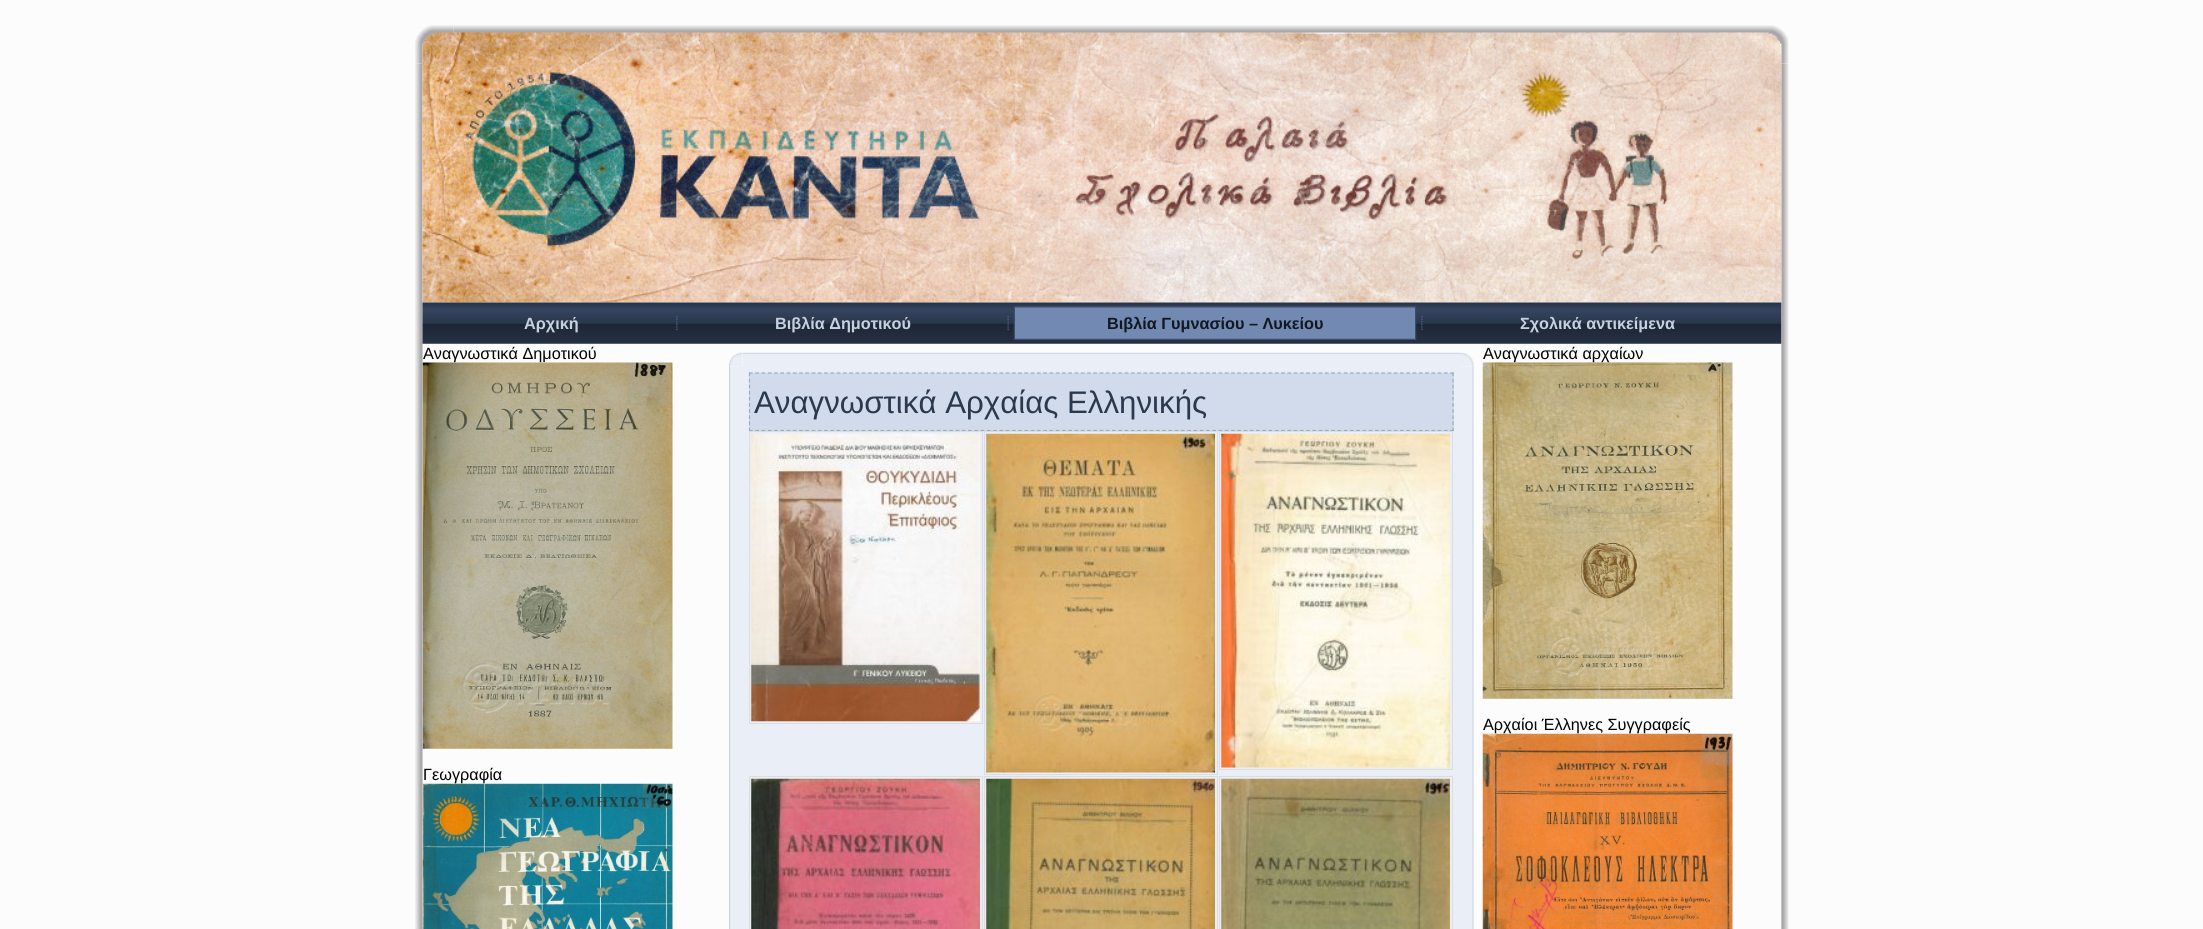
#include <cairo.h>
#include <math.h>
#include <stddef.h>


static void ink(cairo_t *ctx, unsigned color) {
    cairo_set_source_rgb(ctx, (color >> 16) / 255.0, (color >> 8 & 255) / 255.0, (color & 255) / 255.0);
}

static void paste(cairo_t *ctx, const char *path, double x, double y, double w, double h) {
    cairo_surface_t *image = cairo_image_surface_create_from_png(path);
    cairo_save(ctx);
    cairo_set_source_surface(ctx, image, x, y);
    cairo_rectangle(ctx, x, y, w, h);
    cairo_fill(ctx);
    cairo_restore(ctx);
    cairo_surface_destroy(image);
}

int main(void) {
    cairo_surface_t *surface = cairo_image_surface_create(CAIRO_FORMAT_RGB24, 2203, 929);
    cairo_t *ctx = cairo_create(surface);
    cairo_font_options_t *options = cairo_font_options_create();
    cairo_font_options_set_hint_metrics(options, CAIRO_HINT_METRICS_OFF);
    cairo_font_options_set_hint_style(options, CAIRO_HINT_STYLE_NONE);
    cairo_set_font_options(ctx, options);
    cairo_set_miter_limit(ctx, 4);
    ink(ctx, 0xFCFCFD);
    cairo_paint(ctx);
    paste(ctx, "media/1.png", 415, 25, 39, 39);
    paste(ctx, "media/2.png", 454, 25, 1296, 8);
    paste(ctx, "media/3.png", 1750, 25, 39, 39);
    paste(ctx, "media/4.png", 415, 64, 8, 865);
    paste(ctx, "media/27.png", 1781, 64, 8, 865);
    paste(ctx, "media/5.png", 422, 32, 1360, 271);
    paste(ctx, "media/6.png", 422, 302, 1360, 42);
    cairo_select_font_face(ctx, "Liberation Sans", CAIRO_FONT_SLANT_NORMAL, CAIRO_FONT_WEIGHT_BOLD);
    cairo_set_font_size(ctx, 16.25);
    ink(ctx, 0xC7D1E0);
    cairo_move_to(ctx, 524, 329);
    cairo_show_text(ctx, "Αρχική");
    paste(ctx, "media/7.png", 676, 316, 2, 15);
    cairo_move_to(ctx, 775, 329);
    cairo_show_text(ctx, "Βιβλία Δημοτικού");
    paste(ctx, "media/8.png", 1007, 316, 2, 15);
    paste(ctx, "media/9.png", 1013, 306, 2, 34);
    paste(ctx, "media/10.png", 1415, 306, 2, 34);
    paste(ctx, "media/11.png", 1015, 306, 400, 34);
    ink(ctx, 0x121821);
    cairo_move_to(ctx, 1107, 329);
    cairo_show_text(ctx, "Βιβλία Γυμνασίου – Λυκείου");
    paste(ctx, "media/7.png", 1421, 316, 2, 15);
    ink(ctx, 0xC7D1E0);
    cairo_move_to(ctx, 1520, 329);
    cairo_show_text(ctx, "Σχολικά αντικείμενα");
    cairo_select_font_face(ctx, "Liberation Sans", CAIRO_FONT_SLANT_NORMAL, CAIRO_FONT_WEIGHT_NORMAL);
    ink(ctx, 0x000000);
    cairo_move_to(ctx, 423, 359);
    cairo_show_text(ctx, "Αναγνωστικά Δημοτικού");
    paste(ctx, "media/12.png", 422, 362, 251, 387);
    cairo_move_to(ctx, 423, 780);
    cairo_show_text(ctx, "Γεωγραφία");
    paste(ctx, "media/13.png", 422, 783, 251, 146);
    ink(ctx, 0xEAEEF6);
    cairo_rectangle(ctx, 742, 366, 718, 563);
    cairo_fill(ctx);
    paste(ctx, "media/14.png", 729, 352, 14, 15);
    paste(ctx, "media/15.png", 742, 352, 718, 14);
    paste(ctx, "media/16.png", 1460, 352, 14, 15);
    paste(ctx, "media/17.png", 729, 366, 13, 563);
    paste(ctx, "media/18.png", 1460, 366, 14, 563);
    ink(ctx, 0xD1DBEB);
    cairo_rectangle(ctx, 749, 373, 705, 58);
    cairo_fill(ctx);
    cairo_new_path(ctx);
    cairo_move_to(ctx, 749, 373);
    cairo_line_to(ctx, 1454, 373);
    ink(ctx, 0x99ABC7);
    cairo_set_line_width(ctx, 1.2);
    cairo_set_dash(ctx, (double[]){3.75, 2.51}, 2, 0);
    cairo_stroke(ctx);
    cairo_new_path(ctx);
    cairo_move_to(ctx, 1453, 372.5);
    cairo_line_to(ctx, 1453, 431);
    cairo_set_dash(ctx, (double[]){3.75, 2.36}, 2, 0);
    cairo_stroke(ctx);
    cairo_new_path(ctx);
    cairo_move_to(ctx, 749, 430.5);
    cairo_line_to(ctx, 1454, 430.5);
    cairo_set_dash(ctx, (double[]){3.75, 2.51}, 2, 0);
    cairo_stroke(ctx);
    cairo_new_path(ctx);
    cairo_move_to(ctx, 749.5, 372.5);
    cairo_line_to(ctx, 749.5, 431);
    cairo_set_dash(ctx, (double[]){3.75, 2.36}, 2, 0);
    cairo_stroke(ctx);
    cairo_set_font_size(ctx, 31.25);
    ink(ctx, 0x2B394F);
    cairo_move_to(ctx, 754, 413);
    cairo_show_text(ctx, "Αναγνωστικά Αρχαίας Ελληνικής");
    cairo_rectangle(ctx, 749.5, 431.5, 233, 292);
    ink(ctx, 0xDDDDDD);
    cairo_set_line_width(ctx, 1);
    cairo_set_dash(ctx, NULL, 0, 0);
    cairo_stroke(ctx);
    paste(ctx, "media/19.png", 751, 433, 229, 289);
    cairo_rectangle(ctx, 984.5, 431.5, 233, 343);
    cairo_stroke(ctx);
    paste(ctx, "media/20.png", 986, 433, 229, 340);
    cairo_rectangle(ctx, 1219.5, 431.5, 233, 338);
    cairo_stroke(ctx);
    paste(ctx, "media/21.png", 1221, 433, 229, 335);
    cairo_rectangle(ctx, 749.5, 776.5, 233, 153);
    cairo_stroke(ctx);
    paste(ctx, "media/22.png", 751, 778, 229, 151);
    cairo_rectangle(ctx, 984.5, 776.5, 233, 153);
    cairo_stroke(ctx);
    paste(ctx, "media/23.png", 986, 778, 229, 151);
    cairo_rectangle(ctx, 1219.5, 776.5, 233, 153);
    cairo_stroke(ctx);
    paste(ctx, "media/24.png", 1221, 778, 229, 151);
    cairo_set_font_size(ctx, 16.25);
    ink(ctx, 0x000000);
    cairo_move_to(ctx, 1483, 359);
    cairo_show_text(ctx, "Αναγνωστικά αρχαίων");
    paste(ctx, "media/25.png", 1482, 362, 251, 337);
    cairo_move_to(ctx, 1483, 730);
    cairo_show_text(ctx, "Αρχαίοι Έλληνες Συγγραφείς");
    paste(ctx, "media/26.png", 1482, 733, 251, 196);
    cairo_surface_write_to_png(surface, "image.png");
    cairo_font_options_destroy(options);
    cairo_destroy(ctx);
    cairo_surface_destroy(surface);
    return 0;
}
